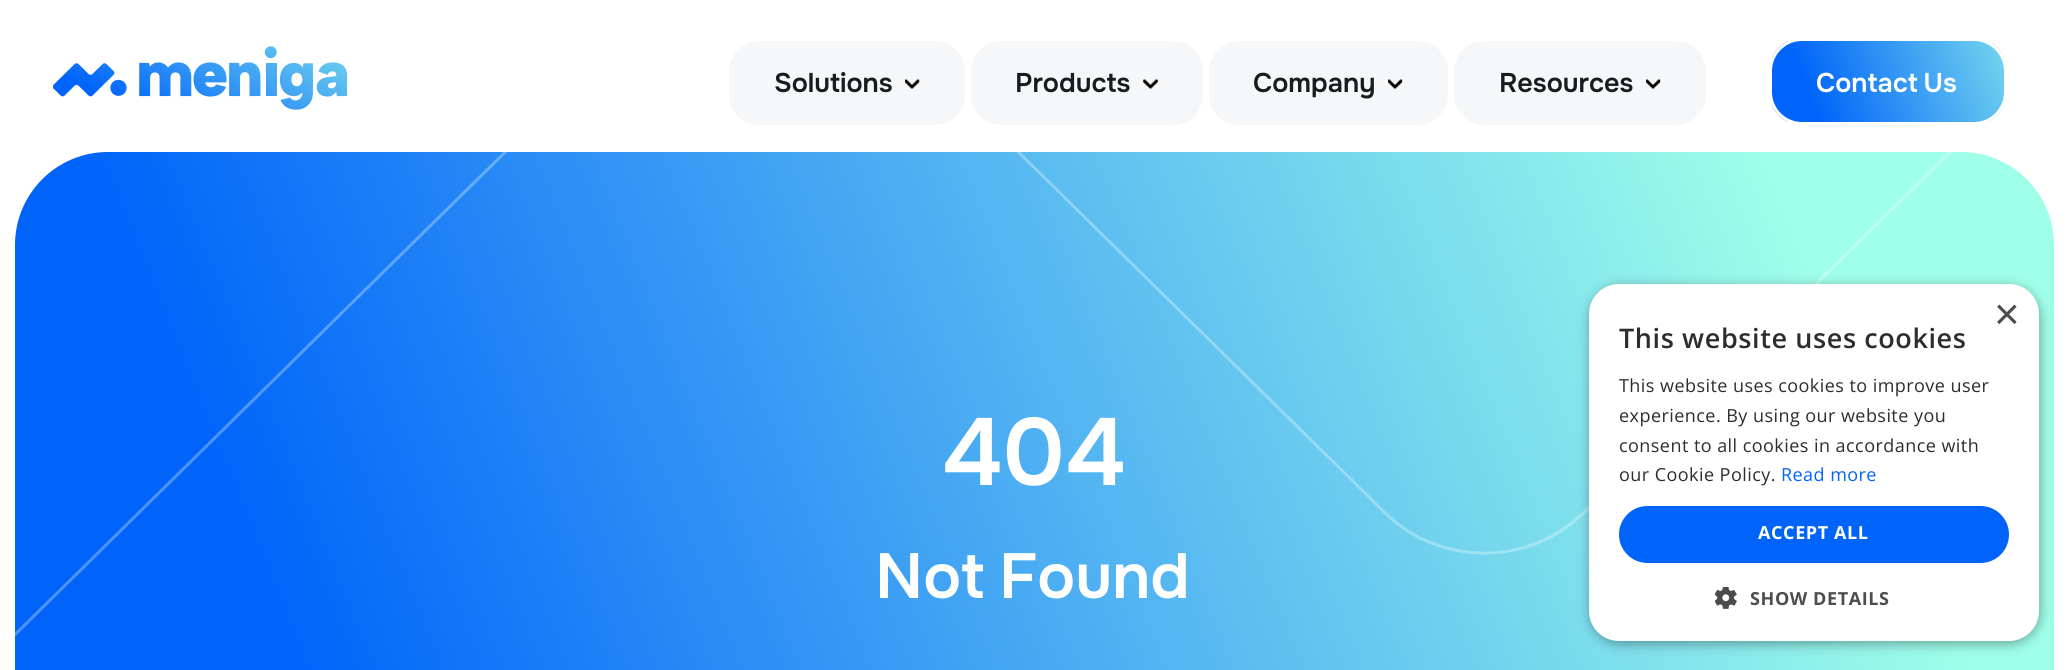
#include <cairo.h>
#include <math.h>
#include <stddef.h>

typedef struct { double x, y; const char *s; } line_t;

static void ink(cairo_t *ctx, unsigned color) {
    cairo_set_source_rgb(ctx, (color >> 16) / 255.0, (color >> 8 & 255) / 255.0, (color & 255) / 255.0);
}

static void write_spaced(cairo_t *ctx, double x, double y, const char *s, double letter, double word) {
    cairo_move_to(ctx, x, y);
    while (*s) {
        char ch[5] = {0};
        int n = 0;
        do ch[n++] = *s++; while ((*s & 0xC0) == 0x80);
        cairo_show_text(ctx, ch);
        cairo_rel_move_to(ctx, letter + word * (*ch == ' '), 0);
    }
}

static void round_path(cairo_t *ctx, double x, double y, double w, double h, double r) {
    cairo_new_sub_path(ctx);
    cairo_arc(ctx, x + w - r, y + h - r, r, 0, M_PI / 2);
    cairo_arc(ctx, x + r, y + h - r, r, M_PI / 2, M_PI);
    cairo_arc(ctx, x + r, y + r, r, M_PI, 1.5 * M_PI);
    cairo_arc(ctx, x + w - r, y + r, r, 1.5 * M_PI, 2 * M_PI);
    cairo_close_path(ctx);
}

static void blur_box(cairo_t *ctx, double x, double y, double w, double h, double r, double blur, double alpha) {
    cairo_push_group_with_content(ctx, CAIRO_CONTENT_ALPHA);
    cairo_set_operator(ctx, CAIRO_OPERATOR_SOURCE);
    for (int i = 15; i >= -15 && fmin(w, h) + blur * i / 3 > 0; i -= 2) {
        double e = blur * i / 6;
        cairo_set_source_rgba(ctx, 0, 0, 0, alpha * erfc((i - 1) / 8.5) / 2);
        round_path(ctx, x - e, y - e, w + 2 * e, h + 2 * e, fmax(0, fmin(r + e + blur * .6, fmin(w, h) / 2 + e)));
        cairo_fill(ctx);
    }
    cairo_pattern_t *soft = cairo_pop_group(ctx);
    cairo_mask(ctx, soft);
    cairo_pattern_destroy(soft);
}

static void paste(cairo_t *ctx, const char *path, double x, double y, double w, double h) {
    cairo_surface_t *image = cairo_image_surface_create_from_png(path);
    cairo_save(ctx);
    cairo_set_source_surface(ctx, image, x, y);
    cairo_rectangle(ctx, x, y, w, h);
    cairo_fill(ctx);
    cairo_restore(ctx);
    cairo_surface_destroy(image);
}

int main(void) {
    cairo_surface_t *surface = cairo_image_surface_create(CAIRO_FORMAT_RGB24, 2068, 670);
    cairo_t *ctx = cairo_create(surface);
    cairo_font_options_t *options = cairo_font_options_create();
    cairo_font_options_set_hint_metrics(options, CAIRO_HINT_METRICS_OFF);
    cairo_font_options_set_hint_style(options, CAIRO_HINT_STYLE_NONE);
    cairo_set_font_options(ctx, options);
    cairo_set_miter_limit(ctx, 4);
    cairo_pattern_t *gradient;
    ink(ctx, 0xFFFFFF);
    cairo_paint(ctx);
    paste(ctx, "media/1.png", 53, 46, 295, 64);
    ink(ctx, 0xF6F7F8);
    round_path(ctx, 727.5, 39.5, 239, 87, 31.5);
    cairo_fill_preserve(ctx);
    ink(ctx, 0xFFFFFF);
    cairo_set_line_width(ctx, 3);
    cairo_stroke(ctx);
    cairo_select_font_face(ctx, "Onest SemiBold", CAIRO_FONT_SLANT_NORMAL, CAIRO_FONT_WEIGHT_NORMAL);
    cairo_set_font_size(ctx, 27);
    ink(ctx, 0x191B1E);
    cairo_move_to(ctx, 774, 92);
    cairo_show_text(ctx, "Solutions");
    paste(ctx, "media/2.png", 905, 79, 15, 10);
    ink(ctx, 0xF6F7F8);
    round_path(ctx, 969.5, 39.5, 235, 87, 31.5);
    cairo_fill_preserve(ctx);
    ink(ctx, 0xFFFFFF);
    cairo_stroke(ctx);
    ink(ctx, 0x191B1E);
    cairo_move_to(ctx, 1015, 92);
    cairo_show_text(ctx, "Products");
    paste(ctx, "media/3.png", 1143, 79, 15, 10);
    ink(ctx, 0xF6F7F8);
    round_path(ctx, 1207.5, 39.5, 242, 87, 31.5);
    cairo_fill_preserve(ctx);
    ink(ctx, 0xFFFFFF);
    cairo_stroke(ctx);
    ink(ctx, 0x191B1E);
    cairo_move_to(ctx, 1253, 92);
    cairo_show_text(ctx, "Company");
    paste(ctx, "media/2.png", 1388, 79, 15, 10);
    ink(ctx, 0xF6F7F8);
    round_path(ctx, 1452.5, 39.5, 255, 87, 31.5);
    cairo_fill_preserve(ctx);
    ink(ctx, 0xFFFFFF);
    cairo_stroke(ctx);
    ink(ctx, 0x191B1E);
    cairo_move_to(ctx, 1499, 92);
    cairo_show_text(ctx, "Resources");
    paste(ctx, "media/2.png", 1646, 79, 15, 10);
    cairo_save(ctx);
    round_path(ctx, 1769, 38, 238, 87, 33);
    cairo_clip(ctx);
    gradient = cairo_pattern_create_linear(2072, 10, 1773, 125);
    cairo_pattern_add_color_stop_rgba(gradient, 0, 0.624, 1, 0.914, 1);
    cairo_pattern_add_color_stop_rgba(gradient, 0.86, 0, 0.392, 0.98, 1);
    cairo_set_source(ctx, gradient);
    cairo_pattern_destroy(gradient);
    cairo_rectangle(ctx, 1772, 41, 232, 81);
    cairo_fill(ctx);
    cairo_restore(ctx);
    round_path(ctx, 1770.5, 39.5, 235, 84, 31.5);
    ink(ctx, 0xFFFFFF);
    cairo_stroke(ctx);
    write_spaced(ctx, 1816, 92, "Contact Us", 0, -2);
    gradient = cairo_pattern_create_linear(2067, 184, 1.7, 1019);
    cairo_pattern_add_color_stop_rgba(gradient, 0.12, 0.624, 1, 0.914, 1);
    cairo_pattern_add_color_stop_rgba(gradient, 0.82, 0, 0.392, 0.98, 1);
    cairo_set_source(ctx, gradient);
    cairo_pattern_destroy(gradient);
    round_path(ctx, 15, 152, 2039, 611, 93);
    cairo_fill(ctx);
    cairo_set_font_size(ctx, 95);
    ink(ctx, 0xFFFFFF);
    cairo_move_to(ctx, 942, 485);
    cairo_show_text(ctx, "404");
    cairo_set_font_size(ctx, 63.5);
    write_spaced(ctx, 875, 598, "Not Found", 0, -3);
    paste(ctx, "media/4.png", 15, 152, 1937, 485);
    ink(ctx, 0x000000);
    blur_box(ctx, 1590, 287, 450, 357, 30, 6, 0.35);
    ink(ctx, 0xFFFFFF);
    round_path(ctx, 1589, 284, 450, 357, 30);
    cairo_fill(ctx);
    cairo_select_font_face(ctx, "Liberation Sans", CAIRO_FONT_SLANT_NORMAL, CAIRO_FONT_WEIGHT_NORMAL);
    cairo_set_font_size(ctx, 44);
    ink(ctx, 0x4D4D4D);
    cairo_move_to(ctx, 1994, 329);
    cairo_show_text(ctx, "×");
    cairo_select_font_face(ctx, "Open Sans SemiBold", CAIRO_FONT_SLANT_NORMAL, CAIRO_FONT_WEIGHT_NORMAL);
    cairo_set_font_size(ctx, 27);
    ink(ctx, 0x2D2D2D);
    write_spaced(ctx, 1619, 348, "This website uses cookies", 0.6, 0);
    cairo_select_font_face(ctx, "Open Sans", CAIRO_FONT_SLANT_NORMAL, CAIRO_FONT_WEIGHT_NORMAL);
    cairo_set_font_size(ctx, 18);
    {
        static const line_t items[] = {
            {1619, 392, "This website uses cookies to improve user"},
            {1619, 422, "experience. By using our website you"},
            {1619, 452, "consent to all cookies in accordance with"},
            {1619, 481, "our Cookie Policy."},
        };
        for (size_t i = 0; i < sizeof items / sizeof *items; i++) {
            write_spaced(ctx, items[i].x, items[i].y, items[i].s, 0.45, 0);
        }
    }
    ink(ctx, 0x0064FA);
    write_spaced(ctx, 1781, 481, "Read more", 0.45, 0);
    round_path(ctx, 1619, 506, 390, 57, 28.5);
    cairo_fill(ctx);
    cairo_select_font_face(ctx, "Open Sans", CAIRO_FONT_SLANT_NORMAL, CAIRO_FONT_WEIGHT_BOLD);
    ink(ctx, 0xFFFFFF);
    write_spaced(ctx, 1758, 539, "ACCEPT ALL", 0.6, 0);
    paste(ctx, "media/5.png", 1715, 587, 22, 22);
    ink(ctx, 0x4D4D4D);
    write_spaced(ctx, 1750, 605, "SHOW DETAILS", 0.6, 0);
    cairo_surface_write_to_png(surface, "image.png");
    cairo_font_options_destroy(options);
    cairo_destroy(ctx);
    cairo_surface_destroy(surface);
    return 0;
}
